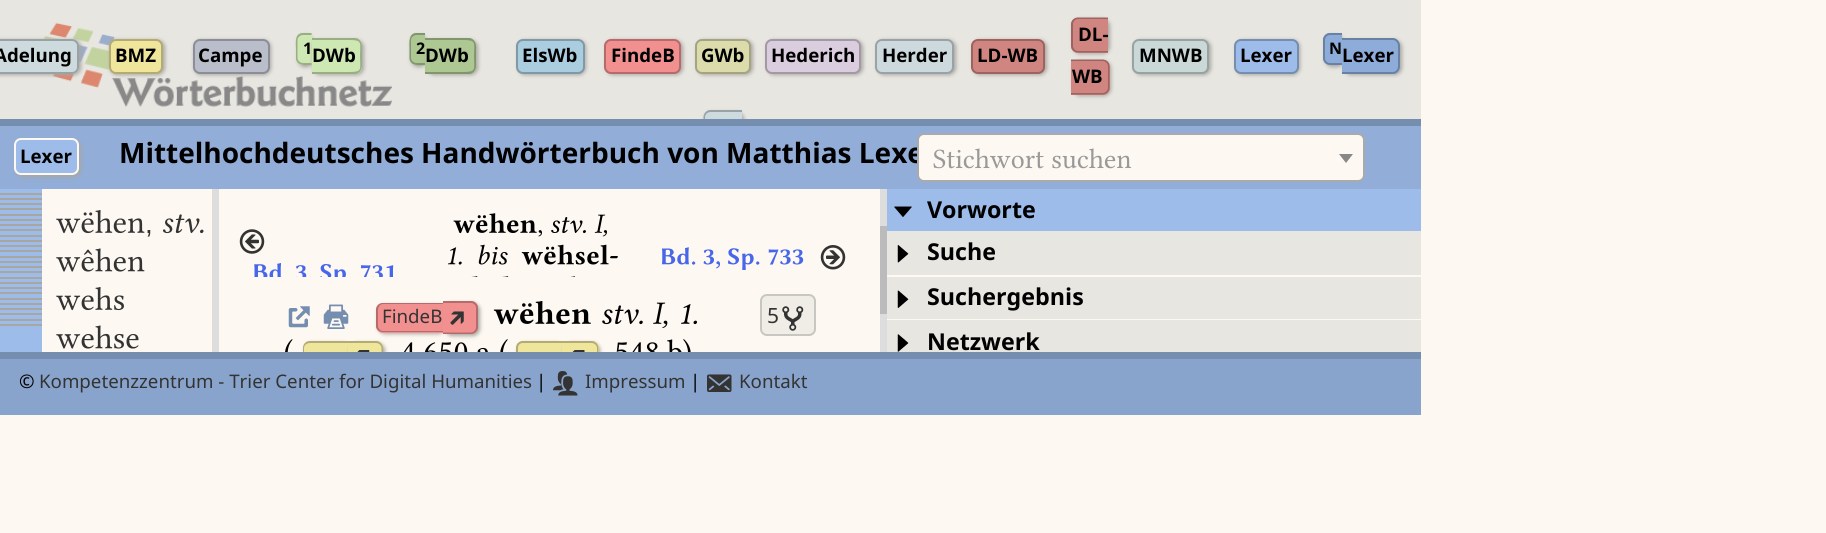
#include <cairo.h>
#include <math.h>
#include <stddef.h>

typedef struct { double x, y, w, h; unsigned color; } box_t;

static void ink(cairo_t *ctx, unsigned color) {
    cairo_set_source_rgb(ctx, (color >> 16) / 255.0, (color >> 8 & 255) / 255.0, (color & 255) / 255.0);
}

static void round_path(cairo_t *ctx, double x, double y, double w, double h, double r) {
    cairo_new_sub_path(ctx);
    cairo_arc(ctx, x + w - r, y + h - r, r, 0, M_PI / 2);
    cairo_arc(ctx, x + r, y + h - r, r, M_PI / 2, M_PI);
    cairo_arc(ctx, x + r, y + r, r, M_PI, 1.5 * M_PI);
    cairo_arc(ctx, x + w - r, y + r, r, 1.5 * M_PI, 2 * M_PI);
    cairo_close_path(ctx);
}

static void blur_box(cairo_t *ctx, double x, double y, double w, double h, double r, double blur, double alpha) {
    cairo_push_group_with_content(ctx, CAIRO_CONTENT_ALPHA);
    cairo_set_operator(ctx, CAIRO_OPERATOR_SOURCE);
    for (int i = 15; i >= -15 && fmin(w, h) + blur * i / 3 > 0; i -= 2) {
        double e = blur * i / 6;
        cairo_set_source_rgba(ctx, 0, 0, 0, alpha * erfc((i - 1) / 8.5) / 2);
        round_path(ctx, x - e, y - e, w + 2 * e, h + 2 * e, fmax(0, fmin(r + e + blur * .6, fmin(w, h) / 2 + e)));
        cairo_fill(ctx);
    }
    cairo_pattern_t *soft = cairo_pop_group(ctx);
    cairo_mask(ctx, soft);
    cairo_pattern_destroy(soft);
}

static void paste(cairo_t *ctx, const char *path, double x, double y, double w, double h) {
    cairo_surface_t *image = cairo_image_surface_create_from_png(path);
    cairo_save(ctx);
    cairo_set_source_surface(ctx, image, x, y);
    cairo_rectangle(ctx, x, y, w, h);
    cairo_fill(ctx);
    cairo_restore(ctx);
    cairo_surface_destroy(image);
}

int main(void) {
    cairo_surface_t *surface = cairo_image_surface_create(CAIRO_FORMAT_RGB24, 1826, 533);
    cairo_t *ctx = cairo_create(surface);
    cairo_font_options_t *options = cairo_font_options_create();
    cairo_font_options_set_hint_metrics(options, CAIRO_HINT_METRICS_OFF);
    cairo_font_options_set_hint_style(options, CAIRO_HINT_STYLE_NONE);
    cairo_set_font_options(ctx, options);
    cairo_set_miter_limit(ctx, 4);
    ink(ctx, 0xFDF9F2);
    cairo_paint(ctx);
    ink(ctx, 0x758DAF);
    cairo_rectangle(ctx, 0, 119, 1421, 7);
    cairo_fill(ctx);
    ink(ctx, 0xE8E6E1);
    cairo_rectangle(ctx, 0, 0, 1421, 119);
    cairo_fill(ctx);
    paste(ctx, "media/1.png", 43, 22, 349, 85);
    ink(ctx, 0xA8A6A1);
    blur_box(ctx, -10, 40, 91, 35, 7, 2, 1);
    ink(ctx, 0xCDDADE);
    cairo_new_path(ctx);
    cairo_move_to(ctx, 0, 39);
    cairo_line_to(ctx, 72, 39);
    cairo_curve_to(ctx, 76, 39, 79, 42, 79, 46);
    cairo_line_to(ctx, 79, 67);
    cairo_curve_to(ctx, 79, 71, 76, 74, 72, 74);
    cairo_line_to(ctx, 0, 74);
    cairo_close_path(ctx);
    cairo_fill(ctx);
    round_path(ctx, -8, 40, 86, 33, 6);
    ink(ctx, 0x99A3A6);
    cairo_stroke(ctx);
    cairo_select_font_face(ctx, "Noto Sans", CAIRO_FONT_SLANT_NORMAL, CAIRO_FONT_WEIGHT_BOLD);
    cairo_set_font_size(ctx, 18.7);
    ink(ctx, 0x000000);
    cairo_move_to(ctx, -6, 62);
    cairo_show_text(ctx, "Adelung");
    ink(ctx, 0xA8A6A1);
    blur_box(ctx, 110, 40, 55, 35, 7, 2, 1);
    ink(ctx, 0xEFE59B);
    round_path(ctx, 110, 40, 52, 33, 6);
    cairo_fill_preserve(ctx);
    ink(ctx, 0xB3AB74);
    cairo_stroke(ctx);
    ink(ctx, 0x000000);
    cairo_move_to(ctx, 115, 62);
    cairo_show_text(ctx, "BMZ");
    ink(ctx, 0xA8A6A1);
    blur_box(ctx, 194, 40, 77, 35, 7, 2, 1);
    ink(ctx, 0xBABECB);
    round_path(ctx, 194, 40, 75, 33, 6);
    cairo_fill_preserve(ctx);
    ink(ctx, 0x8B8E98);
    cairo_stroke(ctx);
    ink(ctx, 0x000000);
    cairo_move_to(ctx, 198, 62);
    cairo_show_text(ctx, "Campe");
    ink(ctx, 0xA8A6A1);
    blur_box(ctx, 298, 35, 15, 32, 7, 2, 1);
    ink(ctx, 0xCEE8B3);
    cairo_new_path(ctx);
    cairo_move_to(ctx, 303, 33);
    cairo_line_to(ctx, 312, 33);
    cairo_line_to(ctx, 312, 65);
    cairo_line_to(ctx, 303, 65);
    cairo_curve_to(ctx, 299, 65, 296, 62, 296, 58);
    cairo_line_to(ctx, 296, 40);
    cairo_curve_to(ctx, 296, 36, 299, 33, 303, 33);
    cairo_close_path(ctx);
    cairo_fill(ctx);
    ink(ctx, 0x9AAE86);
    cairo_set_fill_rule(ctx, CAIRO_FILL_RULE_EVEN_ODD);
    cairo_new_path(ctx);
    cairo_move_to(ctx, 303, 33);
    cairo_line_to(ctx, 311.5, 33);
    cairo_line_to(ctx, 311.5, 65);
    cairo_curve_to(ctx, 306, 65, 297.5, 66.5, 296, 59);
    cairo_line_to(ctx, 296, 49);
    cairo_curve_to(ctx, 296, 43.5, 294, 33, 303, 33);
    cairo_close_path(ctx);
    cairo_move_to(ctx, 303, 35);
    cairo_line_to(ctx, 311.5, 35);
    cairo_line_to(ctx, 311.5, 63);
    cairo_line_to(ctx, 303, 63);
    cairo_curve_to(ctx, 300, 63, 297.5, 60.5, 297.5, 58);
    cairo_line_to(ctx, 297.5, 40);
    cairo_curve_to(ctx, 297.5, 37.5, 300, 35, 303, 35);
    cairo_close_path(ctx);
    cairo_fill(ctx);
    ink(ctx, 0xA8A6A1);
    blur_box(ctx, 313, 40, 51, 35, 7, 2, 1);
    cairo_set_font_size(ctx, 16);
    ink(ctx, 0x000000);
    cairo_move_to(ctx, 303, 54);
    cairo_show_text(ctx, "1");
    ink(ctx, 0xCEE8B3);
    cairo_new_path(ctx);
    cairo_move_to(ctx, 312, 39);
    cairo_line_to(ctx, 355, 39);
    cairo_curve_to(ctx, 359, 39, 362, 42, 362, 46);
    cairo_line_to(ctx, 362, 67);
    cairo_curve_to(ctx, 362, 71, 359, 74, 355, 74);
    cairo_line_to(ctx, 312, 74);
    cairo_close_path(ctx);
    cairo_fill(ctx);
    ink(ctx, 0x9AAE86);
    cairo_new_path(ctx);
    cairo_move_to(ctx, 312, 38);
    cairo_line_to(ctx, 355, 38);
    cairo_curve_to(ctx, 359, 38, 362, 42, 362, 46);
    cairo_line_to(ctx, 362, 66);
    cairo_curve_to(ctx, 362, 70, 359, 74, 355, 74);
    cairo_line_to(ctx, 312, 74);
    cairo_close_path(ctx);
    cairo_move_to(ctx, 312, 40);
    cairo_line_to(ctx, 348, 40);
    cairo_curve_to(ctx, 363, 40, 360, 42, 360, 56);
    cairo_curve_to(ctx, 360, 70, 363, 72, 348, 72);
    cairo_line_to(ctx, 312, 72);
    cairo_close_path(ctx);
    cairo_fill(ctx);
    cairo_set_font_size(ctx, 18.7);
    ink(ctx, 0x000000);
    cairo_move_to(ctx, 312, 62);
    cairo_show_text(ctx, "DWb");
    ink(ctx, 0xA8A6A1);
    blur_box(ctx, 411, 35, 16, 32, 7, 2, 1);
    ink(ctx, 0xAEC893);
    cairo_new_path(ctx);
    cairo_move_to(ctx, 417, 33);
    cairo_line_to(ctx, 425, 33);
    cairo_line_to(ctx, 425, 65);
    cairo_line_to(ctx, 417, 65);
    cairo_curve_to(ctx, 413, 65, 410, 62, 410, 58);
    cairo_line_to(ctx, 410, 40);
    cairo_curve_to(ctx, 410, 36, 413, 33, 417, 33);
    cairo_close_path(ctx);
    cairo_fill(ctx);
    ink(ctx, 0x82966E);
    cairo_new_path(ctx);
    cairo_move_to(ctx, 416.5, 33);
    cairo_line_to(ctx, 425, 33);
    cairo_line_to(ctx, 425, 65);
    cairo_curve_to(ctx, 420, 65, 411, 66.5, 409.5, 59);
    cairo_line_to(ctx, 409.5, 49);
    cairo_curve_to(ctx, 409.5, 43.5, 408, 33, 416.5, 33);
    cairo_close_path(ctx);
    cairo_move_to(ctx, 416.5, 35);
    cairo_line_to(ctx, 425, 35);
    cairo_line_to(ctx, 425, 63);
    cairo_line_to(ctx, 416.5, 63);
    cairo_curve_to(ctx, 413.5, 63, 411, 60.5, 411, 58);
    cairo_line_to(ctx, 411, 40);
    cairo_curve_to(ctx, 411, 37.5, 413.5, 35, 416.5, 35);
    cairo_close_path(ctx);
    cairo_fill(ctx);
    ink(ctx, 0xA8A6A1);
    blur_box(ctx, 427, 40, 51, 35, 7, 2, 1);
    cairo_set_font_size(ctx, 16);
    ink(ctx, 0x000000);
    cairo_move_to(ctx, 416, 54);
    cairo_show_text(ctx, "2");
    ink(ctx, 0xAEC893);
    cairo_new_path(ctx);
    cairo_move_to(ctx, 425, 39);
    cairo_line_to(ctx, 469, 39);
    cairo_curve_to(ctx, 473, 39, 476, 42, 476, 46);
    cairo_line_to(ctx, 476, 67);
    cairo_curve_to(ctx, 476, 71, 473, 74, 469, 74);
    cairo_line_to(ctx, 425, 74);
    cairo_close_path(ctx);
    cairo_fill(ctx);
    ink(ctx, 0x82966E);
    cairo_new_path(ctx);
    cairo_move_to(ctx, 425, 38);
    cairo_line_to(ctx, 469, 38);
    cairo_curve_to(ctx, 473, 38, 476, 42, 476, 46);
    cairo_line_to(ctx, 476, 66);
    cairo_curve_to(ctx, 476, 70, 473, 74, 469, 74);
    cairo_line_to(ctx, 425, 74);
    cairo_close_path(ctx);
    cairo_move_to(ctx, 425, 40);
    cairo_line_to(ctx, 462, 40);
    cairo_curve_to(ctx, 477, 40, 474, 42, 474, 56);
    cairo_curve_to(ctx, 474, 70, 477, 72, 462, 72);
    cairo_line_to(ctx, 425, 72);
    cairo_close_path(ctx);
    cairo_fill(ctx);
    cairo_set_font_size(ctx, 18.7);
    ink(ctx, 0x000000);
    cairo_move_to(ctx, 425, 62);
    cairo_show_text(ctx, "DWb");
    ink(ctx, 0xA8A6A1);
    blur_box(ctx, 518, 40, 68, 35, 7, 2, 1);
    ink(ctx, 0xAACDDF);
    round_path(ctx, 517, 40, 67, 33, 6);
    cairo_fill_preserve(ctx);
    ink(ctx, 0x7F99A7);
    cairo_stroke(ctx);
    ink(ctx, 0x000000);
    cairo_move_to(ctx, 522, 62);
    cairo_show_text(ctx, "ElsWb");
    ink(ctx, 0xA8A6A1);
    blur_box(ctx, 606, 40, 77, 35, 7, 2, 1);
    ink(ctx, 0xF28F8F);
    round_path(ctx, 605, 40, 75, 33, 6);
    cairo_fill_preserve(ctx);
    ink(ctx, 0xB56B6B);
    cairo_stroke(ctx);
    ink(ctx, 0x000000);
    cairo_move_to(ctx, 611, 62);
    cairo_show_text(ctx, "FindeB");
    ink(ctx, 0xA8A6A1);
    blur_box(ctx, 697, 40, 56, 35, 7, 2, 1);
    ink(ctx, 0xDBDBAC);
    round_path(ctx, 696, 40, 54, 33, 6);
    cairo_fill_preserve(ctx);
    ink(ctx, 0xA4A481);
    cairo_stroke(ctx);
    ink(ctx, 0x000000);
    cairo_move_to(ctx, 701, 62);
    cairo_show_text(ctx, "GWb");
    ink(ctx, 0xA8A6A1);
    blur_box(ctx, 767, 40, 96, 35, 7, 2, 1);
    ink(ctx, 0xDACDDE);
    round_path(ctx, 766, 40, 94, 33, 6);
    cairo_fill_preserve(ctx);
    ink(ctx, 0xA399A6);
    cairo_stroke(ctx);
    ink(ctx, 0x000000);
    cairo_move_to(ctx, 771, 62);
    cairo_show_text(ctx, "Hederich");
    ink(ctx, 0xA8A6A1);
    blur_box(ctx, 877, 40, 79, 35, 7, 2, 1);
    ink(ctx, 0xCCDADE);
    round_path(ctx, 876, 40, 77, 33, 6);
    cairo_fill_preserve(ctx);
    ink(ctx, 0x99A3A6);
    cairo_stroke(ctx);
    ink(ctx, 0x000000);
    cairo_move_to(ctx, 882, 62);
    cairo_show_text(ctx, "Herder");
    ink(ctx, 0xA8A6A1);
    blur_box(ctx, 973, 40, 74, 35, 7, 2, 1);
    ink(ctx, 0xD08581);
    round_path(ctx, 972, 40, 72, 33, 6);
    cairo_fill_preserve(ctx);
    ink(ctx, 0x9C6360);
    cairo_stroke(ctx);
    ink(ctx, 0x000000);
    cairo_move_to(ctx, 977, 62);
    cairo_show_text(ctx, "LD-WB");
    ink(ctx, 0xA8A6A1);
    blur_box(ctx, 1073, 19, 37, 35, 7, 2, 1);
    ink(ctx, 0xD08581);
    cairo_new_path(ctx);
    cairo_move_to(ctx, 1078, 18);
    cairo_line_to(ctx, 1108, 18);
    cairo_line_to(ctx, 1108, 53);
    cairo_line_to(ctx, 1078, 53);
    cairo_curve_to(ctx, 1074, 53, 1071, 50, 1071, 46);
    cairo_line_to(ctx, 1071, 25);
    cairo_curve_to(ctx, 1071, 21, 1074, 18, 1078, 18);
    cairo_close_path(ctx);
    cairo_fill(ctx);
    ink(ctx, 0x9C6360);
    cairo_new_path(ctx);
    cairo_move_to(ctx, 1078, 17.5);
    cairo_line_to(ctx, 1108, 17.5);
    cairo_line_to(ctx, 1108, 52.5);
    cairo_line_to(ctx, 1078, 52.5);
    cairo_curve_to(ctx, 1074, 52.5, 1071, 49.5, 1071, 45.5);
    cairo_line_to(ctx, 1071, 24.5);
    cairo_curve_to(ctx, 1071, 20.5, 1074, 17.5, 1078, 17.5);
    cairo_close_path(ctx);
    cairo_move_to(ctx, 1078, 19);
    cairo_line_to(ctx, 1108, 19);
    cairo_line_to(ctx, 1108, 51);
    cairo_line_to(ctx, 1078, 51);
    cairo_curve_to(ctx, 1075, 51, 1073, 48.5, 1073, 45.5);
    cairo_line_to(ctx, 1073, 24.5);
    cairo_curve_to(ctx, 1073, 21.5, 1075, 19, 1078, 19);
    cairo_close_path(ctx);
    cairo_fill(ctx);
    ink(ctx, 0x000000);
    cairo_move_to(ctx, 1078, 41);
    cairo_show_text(ctx, "DL-");
    ink(ctx, 0xA8A6A1);
    blur_box(ctx, 1073, 61, 38, 35, 7, 2, 1);
    ink(ctx, 0xD08581);
    cairo_new_path(ctx);
    cairo_move_to(ctx, 1071, 60);
    cairo_line_to(ctx, 1103, 60);
    cairo_curve_to(ctx, 1107, 60, 1110, 63, 1110, 67);
    cairo_line_to(ctx, 1110, 88);
    cairo_curve_to(ctx, 1110, 92, 1107, 95, 1103, 95);
    cairo_line_to(ctx, 1071, 95);
    cairo_close_path(ctx);
    cairo_fill(ctx);
    ink(ctx, 0x9C6360);
    cairo_new_path(ctx);
    cairo_move_to(ctx, 1071, 59.5);
    cairo_line_to(ctx, 1102.5, 59.5);
    cairo_curve_to(ctx, 1106.5, 59.5, 1109.5, 62.5, 1109.5, 66.5);
    cairo_line_to(ctx, 1109.5, 87.5);
    cairo_curve_to(ctx, 1109.5, 91.5, 1106.5, 94.5, 1102.5, 94.5);
    cairo_line_to(ctx, 1071, 94.5);
    cairo_close_path(ctx);
    cairo_move_to(ctx, 1071, 61);
    cairo_line_to(ctx, 1102.5, 61);
    cairo_curve_to(ctx, 1105.5, 61, 1108, 63.5, 1108, 66.5);
    cairo_line_to(ctx, 1108, 87.5);
    cairo_curve_to(ctx, 1108, 90.5, 1105.5, 93, 1102.5, 93);
    cairo_line_to(ctx, 1071, 93);
    cairo_close_path(ctx);
    cairo_fill(ctx);
    ink(ctx, 0x000000);
    cairo_move_to(ctx, 1072, 83);
    cairo_show_text(ctx, "WB");
    ink(ctx, 0xA8A6A1);
    blur_box(ctx, 1134, 40, 77, 35, 7, 2, 1);
    ink(ctx, 0xCAD8D8);
    round_path(ctx, 1133, 40, 75, 33, 6);
    cairo_fill_preserve(ctx);
    ink(ctx, 0x97A2A2);
    cairo_stroke(ctx);
    ink(ctx, 0x000000);
    cairo_move_to(ctx, 1139, 62);
    cairo_show_text(ctx, "MNWB");
    ink(ctx, 0xA8A6A1);
    blur_box(ctx, 1236, 40, 64, 35, 7, 2, 1);
    ink(ctx, 0x9DBCEA);
    round_path(ctx, 1235, 40, 63, 33, 6);
    cairo_fill_preserve(ctx);
    ink(ctx, 0x758DAF);
    cairo_stroke(ctx);
    ink(ctx, 0x000000);
    cairo_move_to(ctx, 1240, 62);
    cairo_show_text(ctx, "Lexer");
    ink(ctx, 0xA8A6A1);
    blur_box(ctx, 1325, 35, 19, 32, 7, 2, 1);
    ink(ctx, 0x8DACDA);
    cairo_new_path(ctx);
    cairo_move_to(ctx, 1330, 33);
    cairo_line_to(ctx, 1342, 33);
    cairo_line_to(ctx, 1342, 65);
    cairo_line_to(ctx, 1330, 65);
    cairo_curve_to(ctx, 1326, 65, 1323, 62, 1323, 58);
    cairo_line_to(ctx, 1323, 40);
    cairo_curve_to(ctx, 1323, 36, 1326, 33, 1330, 33);
    cairo_close_path(ctx);
    cairo_fill(ctx);
    ink(ctx, 0x6981A3);
    cairo_new_path(ctx);
    cairo_move_to(ctx, 1330, 33);
    cairo_line_to(ctx, 1342, 33);
    cairo_line_to(ctx, 1342, 65);
    cairo_line_to(ctx, 1330, 65);
    cairo_curve_to(ctx, 1326, 65, 1323, 61.5, 1323, 58);
    cairo_line_to(ctx, 1323, 40);
    cairo_curve_to(ctx, 1323, 36.5, 1326, 33, 1330, 33);
    cairo_close_path(ctx);
    cairo_move_to(ctx, 1330, 35);
    cairo_line_to(ctx, 1342, 35);
    cairo_line_to(ctx, 1342, 63);
    cairo_line_to(ctx, 1330, 63);
    cairo_curve_to(ctx, 1327, 63, 1325, 60.5, 1325, 58);
    cairo_line_to(ctx, 1325, 40);
    cairo_curve_to(ctx, 1325, 37.5, 1327, 35, 1330, 35);
    cairo_close_path(ctx);
    cairo_fill(ctx);
    ink(ctx, 0xA8A6A1);
    blur_box(ctx, 1344, 40, 58, 35, 7, 2, 1);
    cairo_set_font_size(ctx, 16);
    ink(ctx, 0x000000);
    cairo_move_to(ctx, 1329, 54);
    cairo_show_text(ctx, "N");
    ink(ctx, 0x8DACDA);
    cairo_new_path(ctx);
    cairo_move_to(ctx, 1342, 39);
    cairo_line_to(ctx, 1393, 39);
    cairo_curve_to(ctx, 1397, 39, 1400, 42, 1400, 46);
    cairo_line_to(ctx, 1400, 67);
    cairo_curve_to(ctx, 1400, 71, 1397, 74, 1393, 74);
    cairo_line_to(ctx, 1342, 74);
    cairo_close_path(ctx);
    cairo_fill(ctx);
    ink(ctx, 0x6981A3);
    cairo_new_path(ctx);
    cairo_move_to(ctx, 1342, 38);
    cairo_line_to(ctx, 1393, 38);
    cairo_curve_to(ctx, 1397, 38, 1400, 42, 1400, 46);
    cairo_line_to(ctx, 1400, 66);
    cairo_curve_to(ctx, 1400, 70, 1397, 74, 1393, 74);
    cairo_line_to(ctx, 1342, 74);
    cairo_close_path(ctx);
    cairo_move_to(ctx, 1342, 40);
    cairo_line_to(ctx, 1393, 40);
    cairo_curve_to(ctx, 1396, 40, 1398, 43, 1398, 46);
    cairo_line_to(ctx, 1398, 66);
    cairo_curve_to(ctx, 1398, 69, 1396, 72, 1393, 72);
    cairo_line_to(ctx, 1342, 72);
    cairo_close_path(ctx);
    cairo_fill(ctx);
    cairo_set_font_size(ctx, 18.7);
    ink(ctx, 0x000000);
    cairo_move_to(ctx, 1342, 62);
    cairo_show_text(ctx, "Lexer");
    cairo_save(ctx);
    cairo_set_fill_rule(ctx, CAIRO_FILL_RULE_WINDING);
    cairo_rectangle(ctx, 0, 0, 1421, 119);
    cairo_clip(ctx);
    ink(ctx, 0xA8A6A1);
    blur_box(ctx, 705, 112, 39, 35, 7, 2, 1);
    cairo_restore(ctx);
    ink(ctx, 0xCDDADE);
    cairo_new_path(ctx);
    cairo_move_to(ctx, 711, 110);
    cairo_line_to(ctx, 742, 110);
    cairo_line_to(ctx, 742, 119);
    cairo_line_to(ctx, 704, 119);
    cairo_line_to(ctx, 704, 117);
    cairo_curve_to(ctx, 704, 113, 707, 110, 711, 110);
    cairo_close_path(ctx);
    cairo_fill(ctx);
    cairo_save(ctx);
    cairo_set_fill_rule(ctx, CAIRO_FILL_RULE_WINDING);
    cairo_rectangle(ctx, 0, 0, 1421, 119);
    cairo_clip(ctx);
    ink(ctx, 0x99A3A6);
    cairo_set_fill_rule(ctx, CAIRO_FILL_RULE_EVEN_ODD);
    cairo_new_path(ctx);
    cairo_move_to(ctx, 710.5, 110);
    cairo_line_to(ctx, 742, 110);
    cairo_line_to(ctx, 742, 145);
    cairo_line_to(ctx, 710.5, 145);
    cairo_curve_to(ctx, 706.5, 145, 703.5, 142, 703.5, 138);
    cairo_line_to(ctx, 703.5, 117);
    cairo_curve_to(ctx, 703.5, 113.5, 706.5, 110, 710.5, 110);
    cairo_close_path(ctx);
    cairo_move_to(ctx, 710.5, 112);
    cairo_line_to(ctx, 742, 112);
    cairo_line_to(ctx, 742, 143.5);
    cairo_line_to(ctx, 710.5, 143.5);
    cairo_curve_to(ctx, 707.5, 143.5, 705, 141, 705, 138);
    cairo_line_to(ctx, 705, 117);
    cairo_curve_to(ctx, 705, 114.5, 707.5, 112, 710.5, 112);
    cairo_close_path(ctx);
    cairo_fill(ctx);
    cairo_restore(ctx);
    ink(ctx, 0x91ADD8);
    cairo_rectangle(ctx, 0, 126, 1421, 63);
    cairo_fill(ctx);
    ink(ctx, 0xA8A6A1);
    blur_box(ctx, 16, 140, 65, 37, 7, 2, 1);
    ink(ctx, 0x9DBCEA);
    round_path(ctx, 15, 139, 63, 35, 6);
    cairo_fill_preserve(ctx);
    ink(ctx, 0xFDF9F2);
    cairo_stroke(ctx);
    ink(ctx, 0x000000);
    cairo_move_to(ctx, 20, 163);
    cairo_show_text(ctx, "Lexer");
    cairo_set_font_size(ctx, 28);
    cairo_move_to(ctx, 119, 163);
    cairo_show_text(ctx, "Mittelhochdeutsches Handwörterbuch von Matthias Lexe");
    ink(ctx, 0xFDF9F2);
    round_path(ctx, 918, 134, 446, 47, 6);
    cairo_fill_preserve(ctx);
    ink(ctx, 0xAAAAAA);
    cairo_stroke(ctx);
    paste(ctx, "media/2.png", 933, 148, 199, 21);
    ink(ctx, 0x888888);
    cairo_set_fill_rule(ctx, CAIRO_FILL_RULE_WINDING);
    cairo_new_path(ctx);
    cairo_move_to(ctx, 1339, 154);
    cairo_line_to(ctx, 1353, 154);
    cairo_line_to(ctx, 1346, 163);
    cairo_close_path(ctx);
    cairo_fill(ctx);
    {
        static const box_t items[] = {
            {212, 189, 7, 163, 0xDDDDDD},
            {880, 189, 7, 163, 0xDDDDDD},
            {880, 226, 7, 88, 0xBBBBBB},
            {0, 189, 42, 163, 0x9DBCEA},
            {0, 193, 42, 2, 0xA8A6A1},
            {0, 198, 42, 2, 0xA8A6A1},
            {0, 203, 42, 2, 0xA8A6A1},
            {0, 208, 42, 2, 0xA8A6A1},
            {0, 214, 42, 2, 0xA8A6A1},
            {0, 219, 42, 2, 0xA8A6A1},
            {0, 224, 42, 2, 0xA8A6A1},
            {0, 229, 42, 2, 0xA8A6A1},
            {0, 235, 42, 2, 0xA8A6A1},
            {0, 240, 42, 2, 0xA8A6A1},
            {0, 245, 42, 2, 0xA8A6A1},
            {0, 250, 42, 2, 0xA8A6A1},
            {0, 256, 42, 2, 0xA8A6A1},
            {0, 261, 42, 2, 0xA8A6A1},
            {0, 266, 42, 2, 0xA8A6A1},
            {0, 271, 42, 2, 0xA8A6A1},
            {0, 277, 42, 2, 0xA8A6A1},
            {0, 282, 42, 2, 0xA8A6A1},
            {0, 287, 42, 2, 0xA8A6A1},
            {0, 292, 42, 2, 0xA8A6A1},
            {0, 298, 42, 2, 0xA8A6A1},
            {0, 303, 42, 2, 0xA8A6A1},
            {0, 308, 42, 2, 0xA8A6A1},
            {0, 313, 42, 2, 0xA8A6A1},
            {0, 319, 42, 2, 0xA8A6A1},
            {0, 324, 42, 2, 0xA8A6A1},
        };
        for (size_t i = 0; i < sizeof items / sizeof *items; i++) {
            ink(ctx, items[i].color);
            cairo_rectangle(ctx, items[i].x, items[i].y, items[i].w, items[i].h);
            cairo_fill(ctx);
        }
    }
    paste(ctx, "media/3.png", 56, 210, 89, 24);
    cairo_select_font_face(ctx, "Liberation Sans", CAIRO_FONT_SLANT_NORMAL, CAIRO_FONT_WEIGHT_NORMAL);
    ink(ctx, 0x333333);
    cairo_move_to(ctx, 145, 233);
    cairo_show_text(ctx, ",");
    paste(ctx, "media/4.png", 163, 214, 41, 20);
    paste(ctx, "media/5.png", 56, 248, 89, 24);
    paste(ctx, "media/6.png", 56, 287, 68, 24);
    paste(ctx, "media/7.png", 56, 325, 83, 24);
    ink(ctx, 0x9DBCEA);
    cairo_rectangle(ctx, 887, 189, 534, 42);
    cairo_fill(ctx);
    paste(ctx, "media/8.png", 894, 206, 18, 11);
    cairo_select_font_face(ctx, "Noto Sans", CAIRO_FONT_SLANT_NORMAL, CAIRO_FONT_WEIGHT_BOLD);
    cairo_set_font_size(ctx, 23.25);
    ink(ctx, 0x000000);
    cairo_move_to(ctx, 927, 218);
    cairo_show_text(ctx, "Vorworte");
    ink(ctx, 0xE8E6E1);
    cairo_rectangle(ctx, 887, 231, 534, 44);
    cairo_fill(ctx);
    paste(ctx, "media/9.png", 897, 245, 12, 18);
    ink(ctx, 0x000000);
    cairo_move_to(ctx, 927, 260);
    cairo_show_text(ctx, "Suche");
    ink(ctx, 0xE8E6E1);
    cairo_rectangle(ctx, 887, 277, 534, 42);
    cairo_fill(ctx);
    paste(ctx, "media/10.png", 897, 290, 12, 18);
    ink(ctx, 0x000000);
    cairo_move_to(ctx, 927, 305);
    cairo_show_text(ctx, "Suchergebnis");
    ink(ctx, 0xE8E6E1);
    cairo_rectangle(ctx, 887, 320, 534, 32);
    cairo_fill(ctx);
    paste(ctx, "media/11.png", 897, 334, 12, 18);
    ink(ctx, 0x000000);
    cairo_move_to(ctx, 927, 350);
    cairo_show_text(ctx, "Netzwerk");
    paste(ctx, "media/12.png", 239, 229, 26, 25);
    paste(ctx, "media/13.png", 254, 263, 140, 14);
    paste(ctx, "media/14.png", 453, 213, 84, 21);
    paste(ctx, "media/15.png", 538, 230, 4, 7);
    paste(ctx, "media/16.png", 551, 214, 56, 23);
    paste(ctx, "media/17.png", 448, 247, 14, 18);
    paste(ctx, "media/18.png", 478, 244, 30, 21);
    paste(ctx, "media/19.png", 521, 244, 97, 21);
    paste(ctx, "media/20.png", 471, 276, 38, 1);
    paste(ctx, "media/21.png", 570, 276, 5, 1);
    paste(ctx, "media/22.png", 662, 247, 142, 23);
    paste(ctx, "media/23.png", 820, 245, 26, 25);
    paste(ctx, "media/24.png", 288, 306, 22, 22);
    paste(ctx, "media/25.png", 323, 304, 26, 25);
    ink(ctx, 0xA8A6A1);
    blur_box(ctx, 378, 305, 67, 29, 7, 2, 1);
    ink(ctx, 0xF28F8F);
    cairo_new_path(ctx);
    cairo_move_to(ctx, 383, 303);
    cairo_line_to(ctx, 443, 303);
    cairo_line_to(ctx, 443, 333);
    cairo_line_to(ctx, 383, 333);
    cairo_curve_to(ctx, 379, 333, 376, 330, 376, 326);
    cairo_line_to(ctx, 376, 310);
    cairo_curve_to(ctx, 376, 306, 379, 303, 383, 303);
    cairo_close_path(ctx);
    cairo_fill(ctx);
    ink(ctx, 0xB56B6B);
    cairo_set_fill_rule(ctx, CAIRO_FILL_RULE_EVEN_ODD);
    cairo_new_path(ctx);
    cairo_move_to(ctx, 383, 303);
    cairo_line_to(ctx, 443, 303);
    cairo_line_to(ctx, 443, 332);
    cairo_line_to(ctx, 383, 332);
    cairo_curve_to(ctx, 379, 332, 376, 329, 376, 326);
    cairo_line_to(ctx, 376, 310);
    cairo_curve_to(ctx, 376, 306, 379, 303, 383, 303);
    cairo_close_path(ctx);
    cairo_move_to(ctx, 383, 304);
    cairo_line_to(ctx, 443, 304);
    cairo_line_to(ctx, 443, 331);
    cairo_line_to(ctx, 383, 331);
    cairo_curve_to(ctx, 380, 331, 378, 328, 378, 326);
    cairo_line_to(ctx, 378, 310);
    cairo_curve_to(ctx, 378, 307, 380, 304, 383, 304);
    cairo_close_path(ctx);
    cairo_fill(ctx);
    ink(ctx, 0xA8A6A1);
    blur_box(ctx, 445, 303, 35, 33, 7, 2, 1);
    ink(ctx, 0xF28F8F);
    cairo_new_path(ctx);
    cairo_move_to(ctx, 443, 301);
    cairo_line_to(ctx, 471, 301);
    cairo_curve_to(ctx, 475, 301, 478, 304, 478, 308);
    cairo_line_to(ctx, 478, 327);
    cairo_curve_to(ctx, 478, 331, 475, 334, 471, 334);
    cairo_line_to(ctx, 443, 334);
    cairo_close_path(ctx);
    cairo_fill(ctx);
    ink(ctx, 0xB56B6B);
    cairo_new_path(ctx);
    cairo_move_to(ctx, 443, 301);
    cairo_line_to(ctx, 471, 301);
    cairo_curve_to(ctx, 474.5, 301, 478, 304, 478, 308);
    cairo_line_to(ctx, 478, 327);
    cairo_curve_to(ctx, 478, 331, 474.5, 334, 471, 334);
    cairo_line_to(ctx, 443, 334);
    cairo_close_path(ctx);
    cairo_move_to(ctx, 443, 303);
    cairo_line_to(ctx, 471, 303);
    cairo_curve_to(ctx, 473.5, 303, 476, 305, 476, 308);
    cairo_line_to(ctx, 476, 327);
    cairo_curve_to(ctx, 476, 330, 473.5, 332.5, 471, 332.5);
    cairo_line_to(ctx, 443, 332.5);
    cairo_close_path(ctx);
    cairo_fill(ctx);
    cairo_select_font_face(ctx, "Noto Sans", CAIRO_FONT_SLANT_NORMAL, CAIRO_FONT_WEIGHT_NORMAL);
    cairo_set_font_size(ctx, 18.7);
    ink(ctx, 0x333333);
    cairo_move_to(ctx, 382, 323);
    cairo_show_text(ctx, "FindeB");
    paste(ctx, "media/26.png", 450, 311, 14, 14);
    paste(ctx, "media/27.png", 493, 301, 98, 24);
    paste(ctx, "media/28.png", 602, 302, 95, 26);
    ink(ctx, 0xF0EDE6);
    round_path(ctx, 761, 295, 54, 40, 6);
    cairo_fill_preserve(ctx);
    ink(ctx, 0xC8C6C1);
    cairo_stroke(ctx);
    cairo_set_font_size(ctx, 21);
    ink(ctx, 0x333333);
    cairo_move_to(ctx, 767, 323);
    cairo_show_text(ctx, "5");
    paste(ctx, "media/29.png", 782, 306, 22, 25);
    paste(ctx, "media/30.png", 285, 339, 8, 13);
    ink(ctx, 0xA8A6A1);
    blur_box(ctx, 305, 343, 45, 30, 7, 2, 1);
    ink(ctx, 0xEFE59B);
    cairo_new_path(ctx);
    cairo_move_to(ctx, 310, 341);
    cairo_line_to(ctx, 348, 341);
    cairo_line_to(ctx, 348, 352);
    cairo_line_to(ctx, 303, 352);
    cairo_line_to(ctx, 303, 348);
    cairo_curve_to(ctx, 303, 344, 306, 341, 310, 341);
    cairo_close_path(ctx);
    cairo_fill(ctx);
    ink(ctx, 0xB3AB74);
    cairo_new_path(ctx);
    cairo_move_to(ctx, 310, 341);
    cairo_line_to(ctx, 348, 341);
    cairo_line_to(ctx, 348, 371);
    cairo_line_to(ctx, 310, 371);
    cairo_curve_to(ctx, 306, 371, 303, 368, 303, 364);
    cairo_line_to(ctx, 303, 348);
    cairo_curve_to(ctx, 303, 344, 306, 341, 310, 341);
    cairo_close_path(ctx);
    cairo_move_to(ctx, 310, 343);
    cairo_line_to(ctx, 348, 343);
    cairo_line_to(ctx, 348, 369);
    cairo_line_to(ctx, 310, 369);
    cairo_curve_to(ctx, 307, 369, 304, 367, 304, 364);
    cairo_line_to(ctx, 304, 348);
    cairo_curve_to(ctx, 304, 345, 307, 343, 310, 343);
    cairo_close_path(ctx);
    cairo_fill(ctx);
    ink(ctx, 0xA8A6A1);
    blur_box(ctx, 350, 343, 35, 33, 7, 2, 1);
    ink(ctx, 0xEFE59B);
    cairo_new_path(ctx);
    cairo_move_to(ctx, 348, 341);
    cairo_line_to(ctx, 376, 341);
    cairo_curve_to(ctx, 380, 341, 383, 344, 383, 348);
    cairo_line_to(ctx, 383, 352);
    cairo_line_to(ctx, 348, 352);
    cairo_close_path(ctx);
    cairo_fill(ctx);
    ink(ctx, 0xB3AB74);
    cairo_new_path(ctx);
    cairo_move_to(ctx, 348, 341);
    cairo_line_to(ctx, 376, 341);
    cairo_curve_to(ctx, 380, 341, 383, 344.5, 383, 348);
    cairo_line_to(ctx, 383, 367.5);
    cairo_curve_to(ctx, 383, 371.5, 380, 374.5, 376, 374.5);
    cairo_line_to(ctx, 348, 374.5);
    cairo_close_path(ctx);
    cairo_move_to(ctx, 348, 343);
    cairo_line_to(ctx, 376, 343);
    cairo_curve_to(ctx, 379, 343, 381.5, 345.5, 381.5, 348);
    cairo_line_to(ctx, 381.5, 367.5);
    cairo_curve_to(ctx, 381.5, 370.5, 379, 373, 376, 373);
    cairo_line_to(ctx, 348, 373);
    cairo_close_path(ctx);
    cairo_fill(ctx);
    paste(ctx, "media/31.png", 357, 350, 13, 2);
    paste(ctx, "media/32.png", 404, 342, 84, 10);
    paste(ctx, "media/33.png", 500, 339, 8, 13);
    ink(ctx, 0xA8A6A1);
    blur_box(ctx, 518, 343, 46, 30, 7, 2, 1);
    ink(ctx, 0xEFE59B);
    cairo_new_path(ctx);
    cairo_move_to(ctx, 523, 341);
    cairo_line_to(ctx, 562, 341);
    cairo_line_to(ctx, 562, 352);
    cairo_line_to(ctx, 516, 352);
    cairo_line_to(ctx, 516, 348);
    cairo_curve_to(ctx, 516, 344, 519, 341, 523, 341);
    cairo_close_path(ctx);
    cairo_fill(ctx);
    ink(ctx, 0xB3AB74);
    cairo_new_path(ctx);
    cairo_move_to(ctx, 523, 341);
    cairo_line_to(ctx, 562, 341);
    cairo_line_to(ctx, 562, 371);
    cairo_line_to(ctx, 523, 371);
    cairo_curve_to(ctx, 519, 371, 516, 368, 516, 364);
    cairo_line_to(ctx, 516, 348);
    cairo_curve_to(ctx, 516, 344, 519, 341, 523, 341);
    cairo_close_path(ctx);
    cairo_move_to(ctx, 523, 343);
    cairo_line_to(ctx, 562, 343);
    cairo_line_to(ctx, 562, 369);
    cairo_line_to(ctx, 523, 369);
    cairo_curve_to(ctx, 520, 369, 518, 367, 518, 364);
    cairo_line_to(ctx, 518, 348);
    cairo_curve_to(ctx, 518, 345, 520, 343, 523, 343);
    cairo_close_path(ctx);
    cairo_fill(ctx);
    ink(ctx, 0xA8A6A1);
    blur_box(ctx, 564, 343, 36, 33, 7, 2, 1);
    ink(ctx, 0xEFE59B);
    cairo_new_path(ctx);
    cairo_move_to(ctx, 562, 341);
    cairo_line_to(ctx, 592, 341);
    cairo_curve_to(ctx, 596, 341, 599, 344, 599, 348);
    cairo_line_to(ctx, 599, 352);
    cairo_line_to(ctx, 562, 352);
    cairo_close_path(ctx);
    cairo_fill(ctx);
    ink(ctx, 0xB3AB74);
    cairo_new_path(ctx);
    cairo_move_to(ctx, 562, 341);
    cairo_line_to(ctx, 591.5, 341);
    cairo_curve_to(ctx, 595.5, 341, 598.5, 344.5, 598.5, 348);
    cairo_line_to(ctx, 598.5, 367.5);
    cairo_curve_to(ctx, 598.5, 371.5, 595.5, 374.5, 591.5, 374.5);
    cairo_line_to(ctx, 562, 374.5);
    cairo_close_path(ctx);
    cairo_move_to(ctx, 562, 343);
    cairo_line_to(ctx, 591.5, 343);
    cairo_curve_to(ctx, 594.5, 343, 597, 345.5, 597, 348);
    cairo_line_to(ctx, 597, 367.5);
    cairo_curve_to(ctx, 597, 370.5, 594.5, 373, 591.5, 373);
    cairo_line_to(ctx, 562, 373);
    cairo_close_path(ctx);
    cairo_fill(ctx);
    paste(ctx, "media/34.png", 572, 350, 13, 2);
    paste(ctx, "media/35.png", 616, 339, 66, 13);
    paste(ctx, "media/36.png", 683, 339, 8, 13);
    ink(ctx, 0x758DAF);
    cairo_rectangle(ctx, 0, 352, 1421, 7);
    cairo_fill(ctx);
    ink(ctx, 0x89A4CC);
    cairo_rectangle(ctx, 0, 359, 1421, 56);
    cairo_fill(ctx);
    cairo_set_font_size(ctx, 18.7);
    ink(ctx, 0x000000);
    cairo_move_to(ctx, 19, 388);
    cairo_show_text(ctx, "©");
    ink(ctx, 0x333333);
    cairo_move_to(ctx, 39, 388);
    cairo_show_text(ctx, "Kompetenzzentrum - Trier Center for Digital Humanities");
    ink(ctx, 0x000000);
    cairo_move_to(ctx, 536, 388);
    cairo_show_text(ctx, "|");
    paste(ctx, "media/37.png", 553, 371, 25, 25);
    ink(ctx, 0x333333);
    cairo_move_to(ctx, 585, 388);
    cairo_show_text(ctx, "Impressum");
    ink(ctx, 0x000000);
    cairo_move_to(ctx, 690, 388);
    cairo_show_text(ctx, "|");
    paste(ctx, "media/38.png", 707, 374, 25, 18);
    ink(ctx, 0x333333);
    cairo_move_to(ctx, 739, 388);
    cairo_show_text(ctx, "Kontakt");
    cairo_surface_write_to_png(surface, "image.png");
    cairo_font_options_destroy(options);
    cairo_destroy(ctx);
    cairo_surface_destroy(surface);
    return 0;
}
